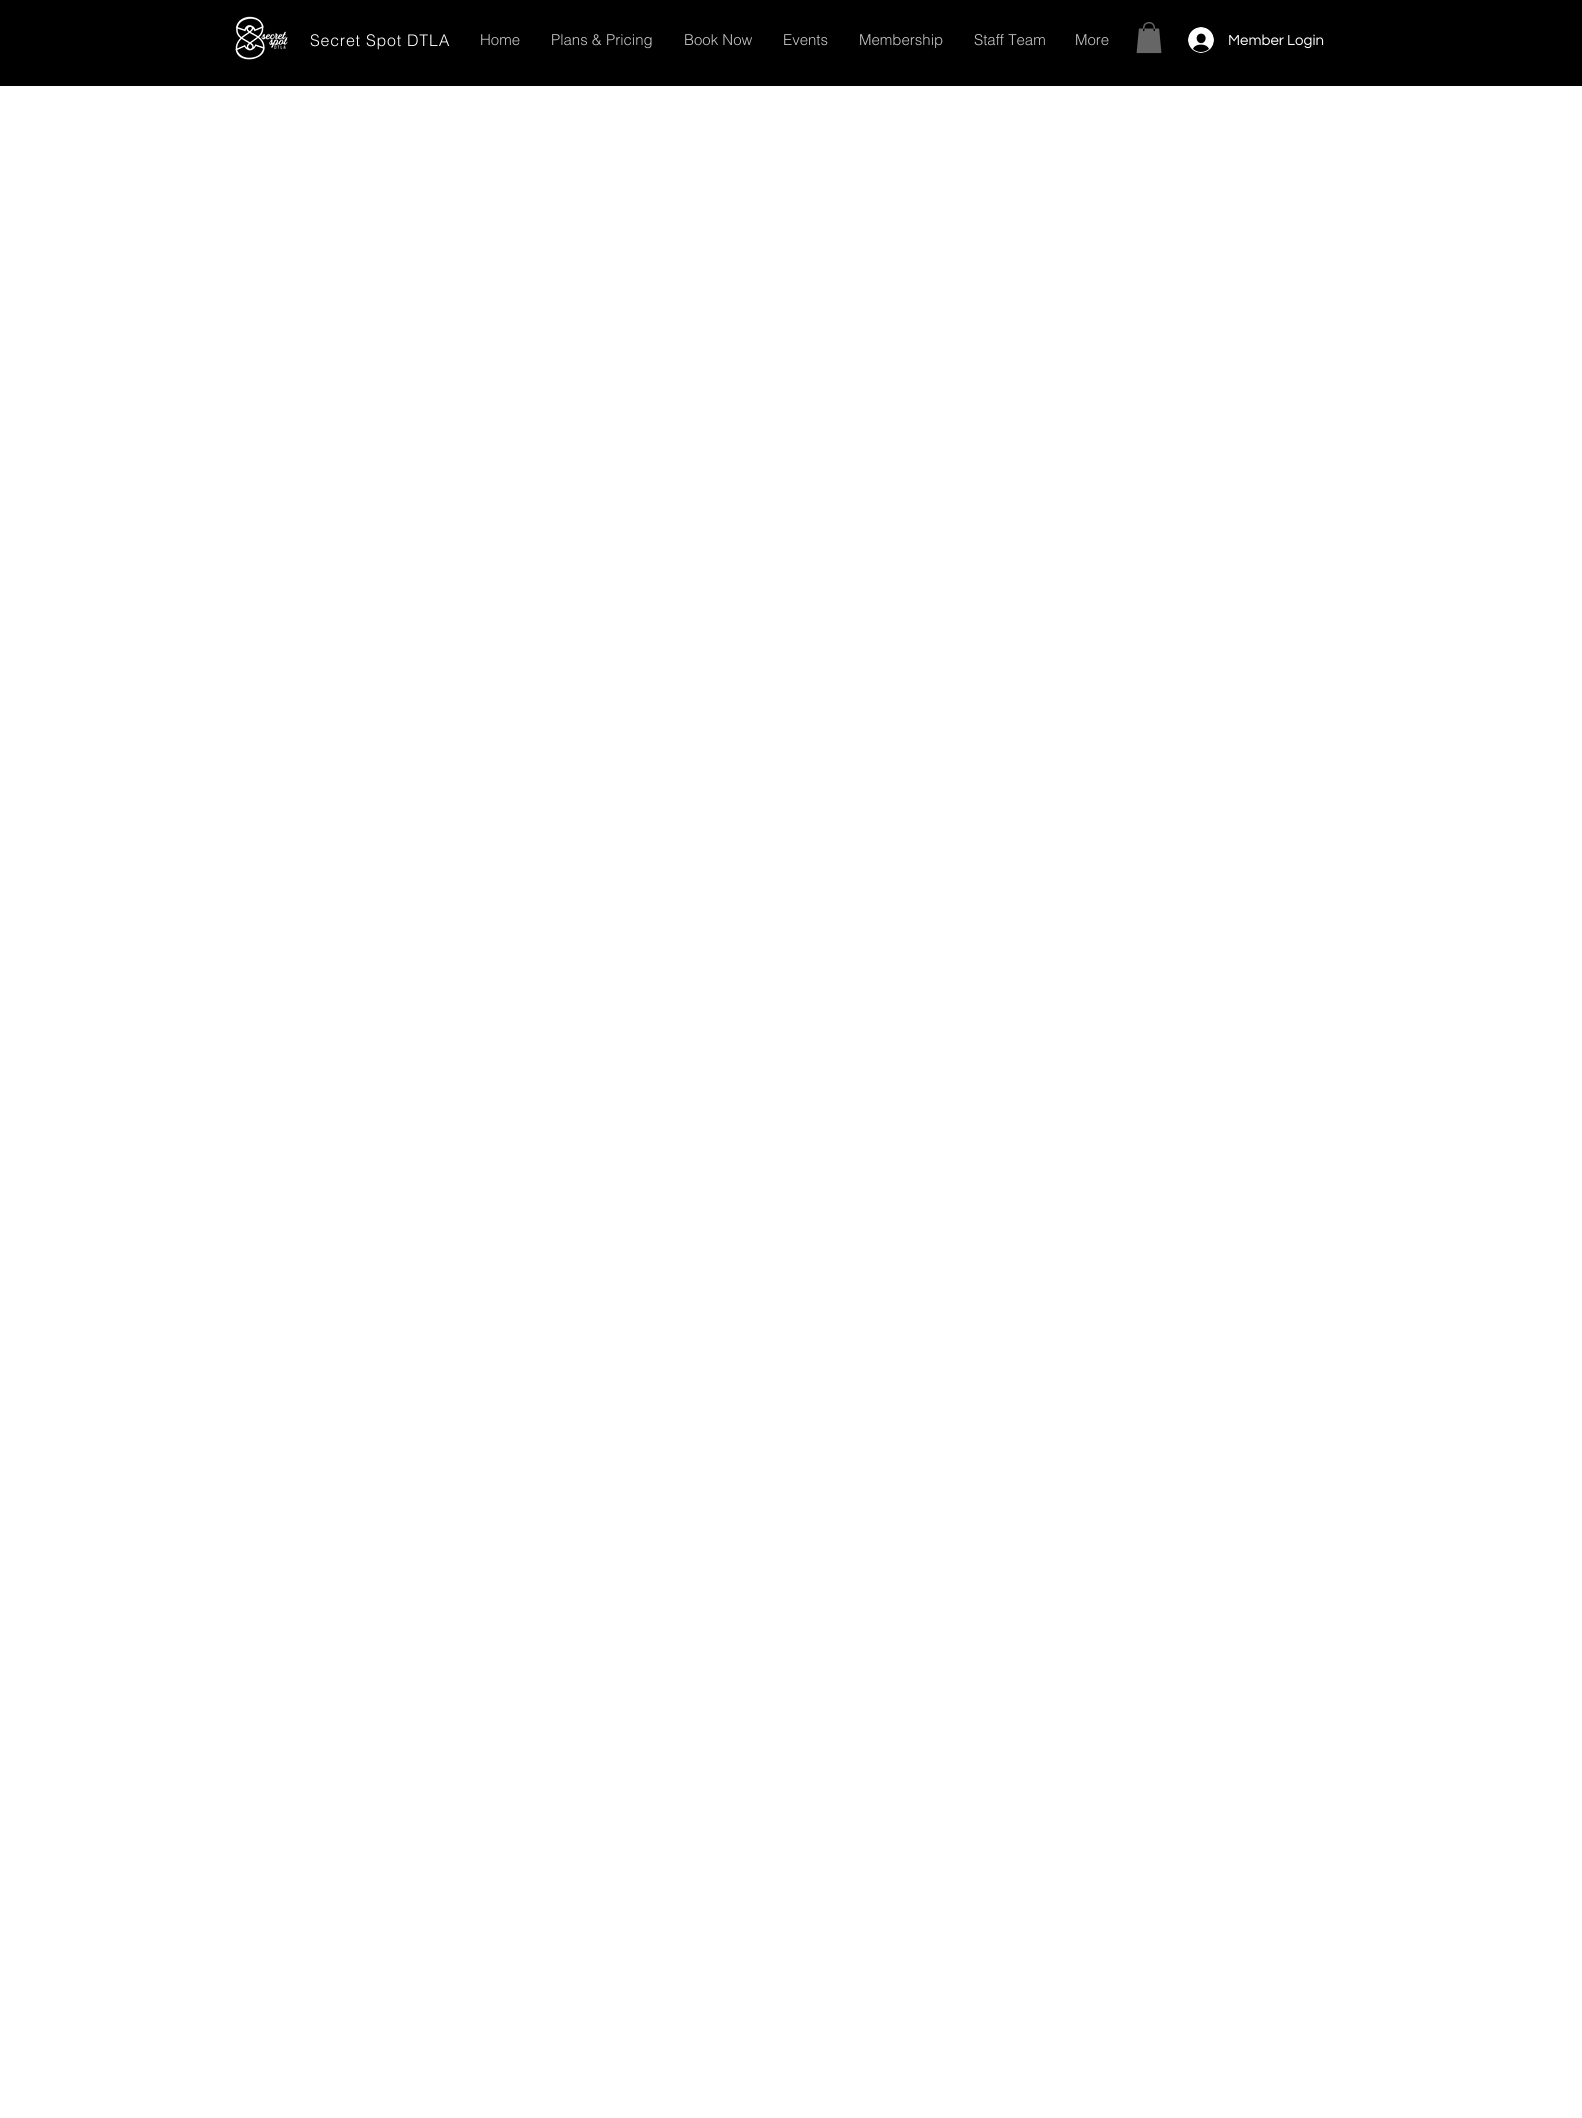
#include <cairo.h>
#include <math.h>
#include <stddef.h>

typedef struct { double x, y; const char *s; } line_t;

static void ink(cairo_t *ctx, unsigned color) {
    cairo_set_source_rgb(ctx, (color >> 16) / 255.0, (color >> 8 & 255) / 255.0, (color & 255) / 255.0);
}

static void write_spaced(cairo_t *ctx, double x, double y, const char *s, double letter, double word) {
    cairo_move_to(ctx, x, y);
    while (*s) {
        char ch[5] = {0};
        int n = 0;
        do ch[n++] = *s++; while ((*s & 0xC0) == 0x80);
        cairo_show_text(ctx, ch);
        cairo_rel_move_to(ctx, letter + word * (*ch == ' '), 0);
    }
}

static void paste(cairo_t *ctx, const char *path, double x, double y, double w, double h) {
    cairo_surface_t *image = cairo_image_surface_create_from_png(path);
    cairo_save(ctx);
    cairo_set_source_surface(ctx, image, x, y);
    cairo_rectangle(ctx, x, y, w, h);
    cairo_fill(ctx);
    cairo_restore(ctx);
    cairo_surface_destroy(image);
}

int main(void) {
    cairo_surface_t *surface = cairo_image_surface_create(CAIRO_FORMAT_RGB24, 1582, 2118);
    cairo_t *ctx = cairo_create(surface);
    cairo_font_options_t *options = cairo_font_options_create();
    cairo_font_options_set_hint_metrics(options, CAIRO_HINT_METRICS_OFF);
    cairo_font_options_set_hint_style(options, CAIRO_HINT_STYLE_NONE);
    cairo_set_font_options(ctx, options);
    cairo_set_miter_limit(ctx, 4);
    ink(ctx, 0xFFFFFF);
    cairo_paint(ctx);
    ink(ctx, 0x000000);
    cairo_rectangle(ctx, 0, 0, 1582, 86);
    cairo_fill(ctx);
    paste(ctx, "media/1.png", 235, 16, 53, 44);
    cairo_select_font_face(ctx, "helvetica Light", CAIRO_FONT_SLANT_NORMAL, CAIRO_FONT_WEIGHT_NORMAL);
    cairo_set_font_size(ctx, 16);
    ink(ctx, 0xFFFFFF);
    write_spaced(ctx, 310, 46, "Secret Spot DTLA", 0.75, 0);
    cairo_set_font_size(ctx, 15);
    ink(ctx, 0xC7C7C7);
    {
        static const line_t items[] = {
            {480, 45, "Home"},
            {551, 45, "Plans & Pricing"},
            {684, 45, "Book Now"},
            {783, 45, "Events"},
            {859, 45, "Membership"},
            {974, 45, "Staff Team"},
            {1075, 45, "More"},
        };
        for (size_t i = 0; i < sizeof items / sizeof *items; i++) {
            cairo_move_to(ctx, items[i].x, items[i].y);
            cairo_show_text(ctx, items[i].s);
        }
    }
    paste(ctx, "media/2.png", 1136, 22, 26, 32);
    paste(ctx, "media/3.png", 1188, 27, 26, 26);
    cairo_select_font_face(ctx, "Questrial", CAIRO_FONT_SLANT_NORMAL, CAIRO_FONT_WEIGHT_NORMAL);
    ink(ctx, 0xFFFFFF);
    cairo_move_to(ctx, 1228, 45);
    cairo_show_text(ctx, "Member Login");
    cairo_surface_write_to_png(surface, "image.png");
    cairo_font_options_destroy(options);
    cairo_destroy(ctx);
    cairo_surface_destroy(surface);
    return 0;
}
